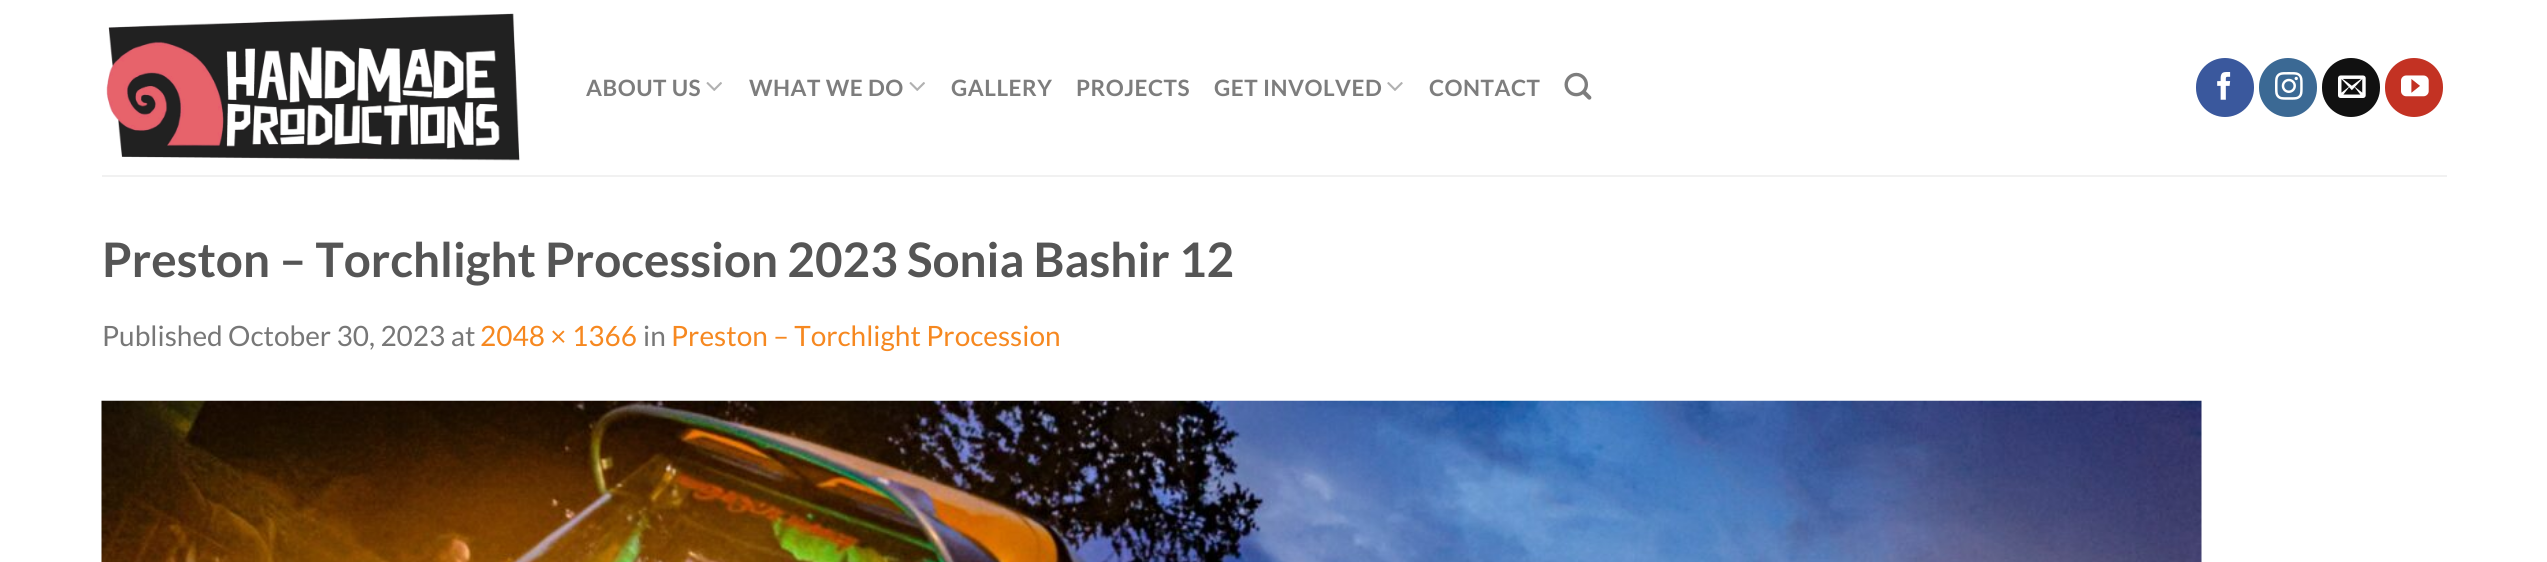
#include <cairo.h>
#include <math.h>
#include <stddef.h>

typedef struct { double x, y; const char *s; } line_t;

static void ink(cairo_t *ctx, unsigned color) {
    cairo_set_source_rgb(ctx, (color >> 16) / 255.0, (color >> 8 & 255) / 255.0, (color & 255) / 255.0);
}

static void write_spaced(cairo_t *ctx, double x, double y, const char *s, double letter, double word) {
    cairo_move_to(ctx, x, y);
    while (*s) {
        char ch[5] = {0};
        int n = 0;
        do ch[n++] = *s++; while ((*s & 0xC0) == 0x80);
        cairo_show_text(ctx, ch);
        cairo_rel_move_to(ctx, letter + word * (*ch == ' '), 0);
    }
}

static void round_path(cairo_t *ctx, double x, double y, double w, double h, double r) {
    cairo_new_sub_path(ctx);
    cairo_arc(ctx, x + w - r, y + h - r, r, 0, M_PI / 2);
    cairo_arc(ctx, x + r, y + h - r, r, M_PI / 2, M_PI);
    cairo_arc(ctx, x + r, y + r, r, M_PI, 1.5 * M_PI);
    cairo_arc(ctx, x + w - r, y + r, r, 1.5 * M_PI, 2 * M_PI);
    cairo_close_path(ctx);
}

static void paste(cairo_t *ctx, const char *path, double x, double y, double w, double h) {
    cairo_surface_t *image = cairo_image_surface_create_from_png(path);
    cairo_save(ctx);
    cairo_set_source_surface(ctx, image, x, y);
    cairo_rectangle(ctx, x, y, w, h);
    cairo_fill(ctx);
    cairo_restore(ctx);
    cairo_surface_destroy(image);
}

int main(void) {
    cairo_surface_t *surface = cairo_image_surface_create(CAIRO_FORMAT_RGB24, 2547, 562);
    cairo_t *ctx = cairo_create(surface);
    cairo_font_options_t *options = cairo_font_options_create();
    cairo_font_options_set_hint_metrics(options, CAIRO_HINT_METRICS_OFF);
    cairo_font_options_set_hint_style(options, CAIRO_HINT_STYLE_NONE);
    cairo_set_font_options(ctx, options);
    cairo_set_miter_limit(ctx, 4);
    ink(ctx, 0xFFFFFF);
    cairo_paint(ctx);
    paste(ctx, "media/1.png", 106, 13, 414, 148);
    cairo_select_font_face(ctx, "Lato", CAIRO_FONT_SLANT_NORMAL, CAIRO_FONT_WEIGHT_BOLD);
    cairo_set_font_size(ctx, 22.5);
    ink(ctx, 0x7D7D7D);
    write_spaced(ctx, 586, 96, "ABOUT US", 0.5, 0);
    paste(ctx, "media/2.png", 706, 82, 16, 9);
    write_spaced(ctx, 749, 96, "WHAT WE DO", 0.5, 0);
    paste(ctx, "media/2.png", 909, 82, 16, 9);
    {
        static const line_t items[] = {
            {951, 96, "GALLERY"},
            {1076, 96, "PROJECTS"},
            {1214, 96, "GET INVOLVED"},
        };
        for (size_t i = 0; i < sizeof items / sizeof *items; i++) {
            write_spaced(ctx, items[i].x, items[i].y, items[i].s, 0.5, 0);
        }
    }
    paste(ctx, "media/3.png", 1387, 82, 16, 9);
    write_spaced(ctx, 1429, 96, "CONTACT", 0.5, 0);
    paste(ctx, "media/4.png", 1564, 72, 28, 28);
    ink(ctx, 0x3A589D);
    round_path(ctx, 2197, 59, 56, 57, 28);
    cairo_fill_preserve(ctx);
    cairo_stroke(ctx);
    paste(ctx, "media/5.png", 2217, 72, 14, 28);
    ink(ctx, 0x3B6994);
    round_path(ctx, 2260, 59, 56, 57, 28);
    cairo_fill_preserve(ctx);
    cairo_stroke(ctx);
    paste(ctx, "media/6.png", 2275, 72, 28, 28);
    ink(ctx, 0x111111);
    round_path(ctx, 2323, 59, 56, 57, 28);
    cairo_fill_preserve(ctx);
    cairo_stroke(ctx);
    paste(ctx, "media/7.png", 2338, 75, 28, 23);
    ink(ctx, 0xC33223);
    round_path(ctx, 2386, 59, 56, 57, 28);
    cairo_fill_preserve(ctx);
    cairo_stroke(ctx);
    paste(ctx, "media/8.png", 2401, 75, 28, 22);
    ink(ctx, 0xF1F1F1);
    cairo_rectangle(ctx, 102, 175, 2345, 2);
    cairo_fill(ctx);
    cairo_set_font_size(ctx, 47.6);
    ink(ctx, 0x555555);
    cairo_move_to(ctx, 102, 277);
    cairo_show_text(ctx, "Preston – Torchlight Procession 2023 Sonia Bashir 12");
    cairo_select_font_face(ctx, "Lato", CAIRO_FONT_SLANT_NORMAL, CAIRO_FONT_WEIGHT_NORMAL);
    cairo_set_font_size(ctx, 28);
    ink(ctx, 0x777777);
    cairo_move_to(ctx, 102, 346);
    cairo_show_text(ctx, "Published October 30, 2023 at");
    ink(ctx, 0xF68820);
    cairo_move_to(ctx, 480, 346);
    cairo_show_text(ctx, "2048 × 1366");
    ink(ctx, 0x777777);
    cairo_move_to(ctx, 643, 346);
    cairo_show_text(ctx, "in");
    ink(ctx, 0xF68820);
    cairo_move_to(ctx, 671, 346);
    cairo_show_text(ctx, "Preston – Torchlight Procession");
    paste(ctx, "media/9.png", 101, 400, 2101, 162);
    cairo_surface_write_to_png(surface, "image.png");
    cairo_font_options_destroy(options);
    cairo_destroy(ctx);
    cairo_surface_destroy(surface);
    return 0;
}
